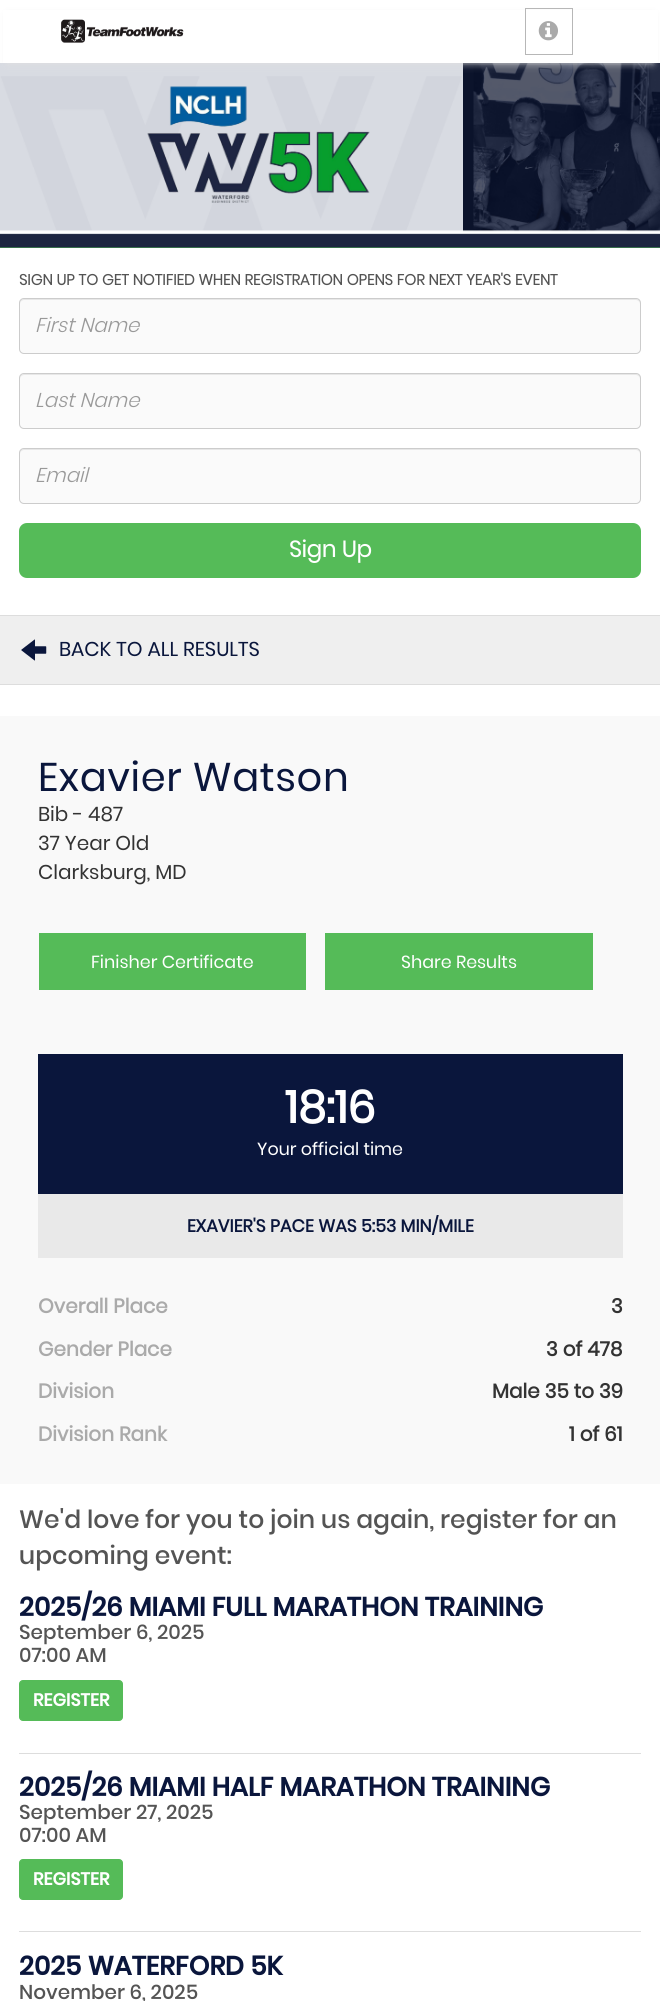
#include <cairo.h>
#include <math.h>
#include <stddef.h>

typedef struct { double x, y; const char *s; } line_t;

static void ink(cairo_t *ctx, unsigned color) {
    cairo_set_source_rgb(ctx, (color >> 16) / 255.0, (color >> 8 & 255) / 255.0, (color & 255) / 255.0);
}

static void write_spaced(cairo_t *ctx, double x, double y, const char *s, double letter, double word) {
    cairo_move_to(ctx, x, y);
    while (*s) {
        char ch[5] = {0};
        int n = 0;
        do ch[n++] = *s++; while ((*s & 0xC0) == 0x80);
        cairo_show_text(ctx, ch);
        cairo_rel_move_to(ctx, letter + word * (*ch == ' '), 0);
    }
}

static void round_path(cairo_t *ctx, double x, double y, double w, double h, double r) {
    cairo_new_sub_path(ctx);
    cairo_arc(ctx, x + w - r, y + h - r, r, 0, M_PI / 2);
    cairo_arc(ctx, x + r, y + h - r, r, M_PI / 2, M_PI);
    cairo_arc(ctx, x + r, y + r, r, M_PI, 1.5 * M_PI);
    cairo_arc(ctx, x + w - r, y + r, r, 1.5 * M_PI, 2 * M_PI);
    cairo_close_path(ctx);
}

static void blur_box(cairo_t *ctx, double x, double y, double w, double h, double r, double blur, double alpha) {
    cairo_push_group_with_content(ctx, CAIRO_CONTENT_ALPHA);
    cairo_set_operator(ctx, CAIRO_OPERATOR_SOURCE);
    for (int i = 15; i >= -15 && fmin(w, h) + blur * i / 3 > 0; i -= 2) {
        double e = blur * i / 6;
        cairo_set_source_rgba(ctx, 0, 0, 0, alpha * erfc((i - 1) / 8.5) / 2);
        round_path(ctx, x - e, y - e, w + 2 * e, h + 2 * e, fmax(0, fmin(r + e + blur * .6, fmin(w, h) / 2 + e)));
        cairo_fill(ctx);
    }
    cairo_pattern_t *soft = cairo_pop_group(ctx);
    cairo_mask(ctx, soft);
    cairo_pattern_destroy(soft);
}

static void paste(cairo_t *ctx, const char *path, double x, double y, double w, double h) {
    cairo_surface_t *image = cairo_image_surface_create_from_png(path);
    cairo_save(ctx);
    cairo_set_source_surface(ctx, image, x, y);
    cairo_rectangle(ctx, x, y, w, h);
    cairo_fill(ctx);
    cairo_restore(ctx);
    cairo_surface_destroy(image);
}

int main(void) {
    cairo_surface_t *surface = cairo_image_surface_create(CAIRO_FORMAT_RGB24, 660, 2001);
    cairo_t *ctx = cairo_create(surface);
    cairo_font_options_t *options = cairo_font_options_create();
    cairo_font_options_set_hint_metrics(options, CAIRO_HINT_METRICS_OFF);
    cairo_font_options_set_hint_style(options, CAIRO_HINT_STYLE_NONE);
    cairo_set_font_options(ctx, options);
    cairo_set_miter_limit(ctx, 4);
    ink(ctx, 0xFFFFFF);
    cairo_paint(ctx);
    ink(ctx, 0x55BB58);
    cairo_rectangle(ctx, 0, 247, 660, 1);
    cairo_fill(ctx);
    paste(ctx, "media/3.png", 0, 63, 660, 185);
    ink(ctx, 0xE1E1E1);
    blur_box(ctx, 8, 15, 645, 48, 0, 4, 1);
    ink(ctx, 0xFFFFFF);
    cairo_rectangle(ctx, 3, 10, 655, 53);
    cairo_fill(ctx);
    paste(ctx, "media/1.png", 61, 19, 123, 24);
    cairo_rectangle(ctx, 525.5, 8.5, 47, 46);
    ink(ctx, 0xB7B7B7);
    cairo_set_line_width(ctx, 1);
    cairo_stroke(ctx);
    paste(ctx, "media/2.png", 538, 21, 20, 20);
    ink(ctx, 0xDDDDDD);
    cairo_rectangle(ctx, 0, 615, 660, 1);
    cairo_fill(ctx);
    cairo_select_font_face(ctx, "Poppins", CAIRO_FONT_SLANT_NORMAL, CAIRO_FONT_WEIGHT_BOLD);
    cairo_set_font_size(ctx, 15);
    ink(ctx, 0x545454);
    cairo_move_to(ctx, 19, 285);
    cairo_show_text(ctx, "SIGN UP TO GET NOTIFIED WHEN REGISTRATION OPENS FOR NEXT YEAR'S EVENT");
    ink(ctx, 0xFAFAFA);
    round_path(ctx, 19, 298, 622, 56, 5);
    cairo_fill(ctx);
    ink(ctx, 0xE7E7E7);
    cairo_new_path(ctx);
    cairo_move_to(ctx, 24, 300);
    cairo_line_to(ctx, 636, 300);
    cairo_curve_to(ctx, 638, 300, 640, 302, 640, 304);
    cairo_line_to(ctx, 640, 303);
    cairo_curve_to(ctx, 640, 301, 638, 299, 636, 299);
    cairo_line_to(ctx, 24, 299);
    cairo_curve_to(ctx, 22, 299, 20, 301, 20, 303);
    cairo_line_to(ctx, 20, 304);
    cairo_curve_to(ctx, 20, 302, 22, 300, 24, 300);
    cairo_close_path(ctx);
    cairo_fill(ctx);
    round_path(ctx, 19.5, 298.5, 621, 55, 4.5);
    ink(ctx, 0xCCCCCC);
    cairo_stroke(ctx);
    cairo_select_font_face(ctx, "Poppins Light", CAIRO_FONT_SLANT_ITALIC, CAIRO_FONT_WEIGHT_NORMAL);
    cairo_set_font_size(ctx, 20);
    ink(ctx, 0x999999);
    cairo_move_to(ctx, 35, 332);
    cairo_show_text(ctx, "First Name");
    ink(ctx, 0xFAFAFA);
    round_path(ctx, 19, 373, 622, 56, 5);
    cairo_fill(ctx);
    ink(ctx, 0xE7E7E7);
    cairo_new_path(ctx);
    cairo_move_to(ctx, 24, 375);
    cairo_line_to(ctx, 636, 375);
    cairo_curve_to(ctx, 638, 375, 640, 377, 640, 379);
    cairo_line_to(ctx, 640, 378);
    cairo_curve_to(ctx, 640, 376, 638, 374, 636, 374);
    cairo_line_to(ctx, 24, 374);
    cairo_curve_to(ctx, 22, 374, 20, 376, 20, 378);
    cairo_line_to(ctx, 20, 379);
    cairo_curve_to(ctx, 20, 377, 22, 375, 24, 375);
    cairo_close_path(ctx);
    cairo_fill(ctx);
    round_path(ctx, 19.5, 373.5, 621, 55, 4.5);
    ink(ctx, 0xCCCCCC);
    cairo_stroke(ctx);
    ink(ctx, 0x999999);
    cairo_move_to(ctx, 35, 407);
    cairo_show_text(ctx, "Last Name");
    ink(ctx, 0xFAFAFA);
    round_path(ctx, 19, 448, 622, 56, 5);
    cairo_fill(ctx);
    ink(ctx, 0xE7E7E7);
    cairo_new_path(ctx);
    cairo_move_to(ctx, 24, 450);
    cairo_line_to(ctx, 636, 450);
    cairo_curve_to(ctx, 638, 450, 640, 452, 640, 454);
    cairo_line_to(ctx, 640, 453);
    cairo_curve_to(ctx, 640, 451, 638, 449, 636, 449);
    cairo_line_to(ctx, 24, 449);
    cairo_curve_to(ctx, 22, 449, 20, 451, 20, 453);
    cairo_line_to(ctx, 20, 454);
    cairo_curve_to(ctx, 20, 452, 22, 450, 24, 450);
    cairo_close_path(ctx);
    cairo_fill(ctx);
    round_path(ctx, 19.5, 448.5, 621, 55, 4.5);
    ink(ctx, 0xCCCCCC);
    cairo_stroke(ctx);
    ink(ctx, 0x999999);
    cairo_move_to(ctx, 35, 482);
    cairo_show_text(ctx, "Email");
    ink(ctx, 0x55BB58);
    round_path(ctx, 19, 523, 622, 55, 8);
    cairo_fill(ctx);
    cairo_select_font_face(ctx, "Poppins", CAIRO_FONT_SLANT_NORMAL, CAIRO_FONT_WEIGHT_BOLD);
    cairo_set_font_size(ctx, 22.5);
    ink(ctx, 0xFFFFFF);
    cairo_move_to(ctx, 289, 557);
    cairo_show_text(ctx, "Sign Up");
    ink(ctx, 0xEFEFEF);
    cairo_rectangle(ctx, 0, 616, 660, 68);
    cairo_fill(ctx);
    ink(ctx, 0xDDDDDD);
    cairo_rectangle(ctx, 0, 684, 660, 1);
    cairo_fill(ctx);
    paste(ctx, "media/4.png", 21, 639, 26, 22);
    cairo_select_font_face(ctx, "Poppins", CAIRO_FONT_SLANT_NORMAL, CAIRO_FONT_WEIGHT_NORMAL);
    cairo_set_font_size(ctx, 20);
    ink(ctx, 0x0A163C);
    cairo_move_to(ctx, 59, 656);
    cairo_show_text(ctx, "BACK TO ALL RESULTS");
    ink(ctx, 0xF9F9F9);
    cairo_rectangle(ctx, 0, 716, 660, 768);
    cairo_fill(ctx);
    cairo_set_font_size(ctx, 40);
    ink(ctx, 0x0A163C);
    write_spaced(ctx, 38, 791, "Exavier Watson", 0.6, 0);
    cairo_set_font_size(ctx, 20);
    ink(ctx, 0x333333);
    {
        static const line_t items[] = {
            {38, 821, "Bib - 487"},
            {38, 850, "37 Year Old"},
            {38, 879, "Clarksburg, MD"},
        };
        for (size_t i = 0; i < sizeof items / sizeof *items; i++) {
            cairo_move_to(ctx, items[i].x, items[i].y);
            cairo_show_text(ctx, items[i].s);
        }
    }
    ink(ctx, 0x55BB58);
    cairo_rectangle(ctx, 39, 933, 267, 57);
    cairo_fill(ctx);
    cairo_set_font_size(ctx, 17.5);
    ink(ctx, 0xFFFFFF);
    cairo_move_to(ctx, 91, 968);
    cairo_show_text(ctx, "Finisher Certificate");
    ink(ctx, 0x55BB58);
    cairo_rectangle(ctx, 325, 933, 268, 57);
    cairo_fill(ctx);
    ink(ctx, 0xFFFFFF);
    cairo_move_to(ctx, 401, 968);
    cairo_show_text(ctx, "Share Results");
    ink(ctx, 0x0A163C);
    cairo_rectangle(ctx, 38, 1054, 585, 140);
    cairo_fill(ctx);
    cairo_select_font_face(ctx, "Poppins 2", CAIRO_FONT_SLANT_NORMAL, CAIRO_FONT_WEIGHT_BOLD);
    cairo_set_font_size(ctx, 45);
    ink(ctx, 0xFFFFFF);
    cairo_move_to(ctx, 285, 1123);
    cairo_show_text(ctx, "18:16");
    cairo_select_font_face(ctx, "Poppins", CAIRO_FONT_SLANT_NORMAL, CAIRO_FONT_WEIGHT_NORMAL);
    cairo_set_font_size(ctx, 17.5);
    cairo_move_to(ctx, 257, 1155);
    cairo_show_text(ctx, "Your official time");
    ink(ctx, 0xE9E9E9);
    cairo_rectangle(ctx, 38, 1194, 585, 64);
    cairo_fill(ctx);
    cairo_select_font_face(ctx, "Poppins 2", CAIRO_FONT_SLANT_NORMAL, CAIRO_FONT_WEIGHT_BOLD);
    ink(ctx, 0x0A163C);
    cairo_move_to(ctx, 187, 1232);
    cairo_show_text(ctx, "EXAVIER'S PACE WAS 5:53 MIN/MILE");
    cairo_set_font_size(ctx, 20);
    ink(ctx, 0xAAAAAA);
    cairo_move_to(ctx, 38, 1313);
    cairo_show_text(ctx, "Overall Place");
    ink(ctx, 0x333333);
    cairo_move_to(ctx, 611, 1313);
    cairo_show_text(ctx, "3");
    ink(ctx, 0xAAAAAA);
    cairo_move_to(ctx, 38, 1356);
    cairo_show_text(ctx, "Gender Place");
    ink(ctx, 0x333333);
    cairo_move_to(ctx, 546, 1356);
    cairo_show_text(ctx, "3 of 478");
    ink(ctx, 0xAAAAAA);
    cairo_move_to(ctx, 38, 1398);
    cairo_show_text(ctx, "Division");
    ink(ctx, 0x333333);
    cairo_move_to(ctx, 492, 1398);
    cairo_show_text(ctx, "Male 35 to 39");
    ink(ctx, 0xAAAAAA);
    cairo_move_to(ctx, 38, 1441);
    cairo_show_text(ctx, "Division Rank");
    ink(ctx, 0x333333);
    cairo_move_to(ctx, 569, 1441);
    cairo_show_text(ctx, "1 of 61");
    cairo_select_font_face(ctx, "Poppins Medium", CAIRO_FONT_SLANT_NORMAL, CAIRO_FONT_WEIGHT_NORMAL);
    cairo_set_font_size(ctx, 25);
    ink(ctx, 0x545454);
    cairo_move_to(ctx, 19, 1528);
    cairo_show_text(ctx, "We'd love for you to join us again, register for an");
    cairo_move_to(ctx, 19, 1564);
    cairo_show_text(ctx, "upcoming event:");
    ink(ctx, 0xDDDDDD);
    cairo_rectangle(ctx, 19, 1753, 622, 1);
    cairo_fill(ctx);
    cairo_select_font_face(ctx, "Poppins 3", CAIRO_FONT_SLANT_NORMAL, CAIRO_FONT_WEIGHT_BOLD);
    cairo_set_font_size(ctx, 26.25);
    ink(ctx, 0x0A163C);
    cairo_move_to(ctx, 19, 1616);
    cairo_show_text(ctx, "2025/26 MIAMI FULL MARATHON TRAINING");
    cairo_select_font_face(ctx, "Poppins Medium", CAIRO_FONT_SLANT_NORMAL, CAIRO_FONT_WEIGHT_NORMAL);
    cairo_set_font_size(ctx, 20);
    ink(ctx, 0x545454);
    cairo_move_to(ctx, 19, 1639);
    cairo_show_text(ctx, "September 6, 2025");
    cairo_move_to(ctx, 19, 1662);
    cairo_show_text(ctx, "07:00 AM");
    ink(ctx, 0x55BB58);
    round_path(ctx, 19.5, 1680.5, 103, 40, 3.5);
    cairo_fill_preserve(ctx);
    cairo_stroke(ctx);
    cairo_select_font_face(ctx, "Poppins 3", CAIRO_FONT_SLANT_NORMAL, CAIRO_FONT_WEIGHT_BOLD);
    cairo_set_font_size(ctx, 17.5);
    ink(ctx, 0xFFFFFF);
    cairo_move_to(ctx, 33, 1706);
    cairo_show_text(ctx, "REGISTER");
    ink(ctx, 0xDDDDDD);
    cairo_rectangle(ctx, 19, 1931, 622, 1);
    cairo_fill(ctx);
    cairo_set_font_size(ctx, 26.25);
    ink(ctx, 0x0A163C);
    cairo_move_to(ctx, 19, 1796);
    cairo_show_text(ctx, "2025/26 MIAMI HALF MARATHON TRAINING");
    cairo_select_font_face(ctx, "Poppins Medium", CAIRO_FONT_SLANT_NORMAL, CAIRO_FONT_WEIGHT_NORMAL);
    cairo_set_font_size(ctx, 20);
    ink(ctx, 0x545454);
    cairo_move_to(ctx, 19, 1819);
    cairo_show_text(ctx, "September 27, 2025");
    cairo_move_to(ctx, 19, 1842);
    cairo_show_text(ctx, "07:00 AM");
    ink(ctx, 0x55BB58);
    round_path(ctx, 19.5, 1859.5, 103, 40, 3.5);
    cairo_fill_preserve(ctx);
    cairo_stroke(ctx);
    cairo_select_font_face(ctx, "Poppins 3", CAIRO_FONT_SLANT_NORMAL, CAIRO_FONT_WEIGHT_BOLD);
    cairo_set_font_size(ctx, 17.5);
    ink(ctx, 0xFFFFFF);
    cairo_move_to(ctx, 33, 1885);
    cairo_show_text(ctx, "REGISTER");
    cairo_set_font_size(ctx, 26.25);
    ink(ctx, 0x0A163C);
    cairo_move_to(ctx, 19, 1975);
    cairo_show_text(ctx, "2025 WATERFORD 5K");
    cairo_select_font_face(ctx, "Poppins Medium", CAIRO_FONT_SLANT_NORMAL, CAIRO_FONT_WEIGHT_NORMAL);
    cairo_set_font_size(ctx, 20);
    ink(ctx, 0x545454);
    cairo_move_to(ctx, 19, 1999);
    cairo_show_text(ctx, "November 6, 2025");
    cairo_surface_write_to_png(surface, "image.png");
    cairo_font_options_destroy(options);
    cairo_destroy(ctx);
    cairo_surface_destroy(surface);
    return 0;
}
